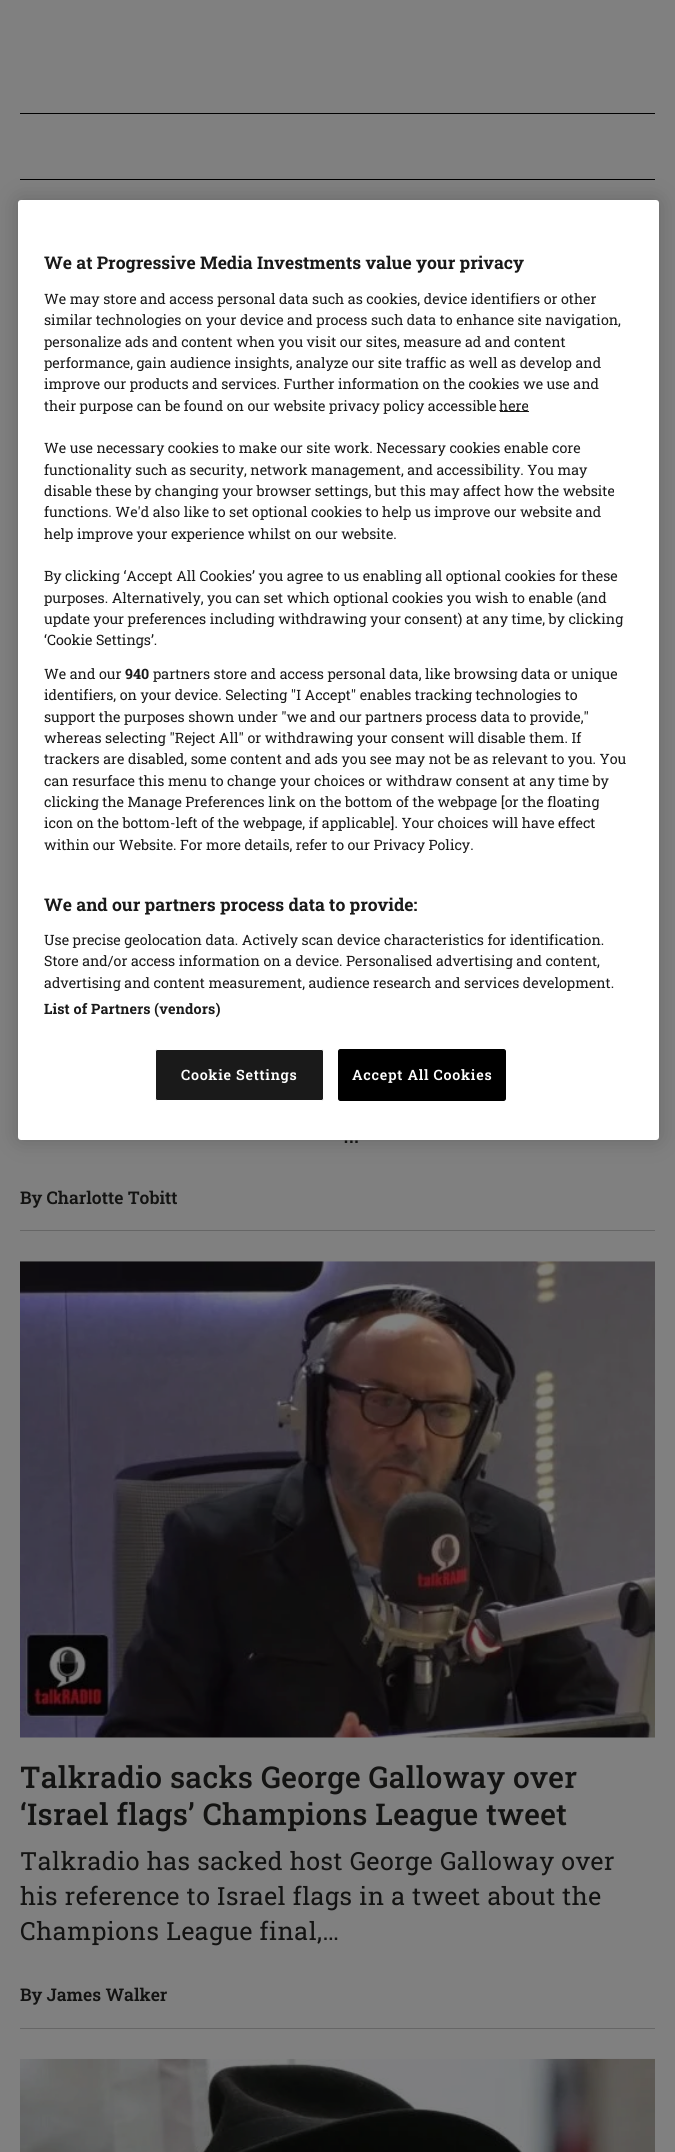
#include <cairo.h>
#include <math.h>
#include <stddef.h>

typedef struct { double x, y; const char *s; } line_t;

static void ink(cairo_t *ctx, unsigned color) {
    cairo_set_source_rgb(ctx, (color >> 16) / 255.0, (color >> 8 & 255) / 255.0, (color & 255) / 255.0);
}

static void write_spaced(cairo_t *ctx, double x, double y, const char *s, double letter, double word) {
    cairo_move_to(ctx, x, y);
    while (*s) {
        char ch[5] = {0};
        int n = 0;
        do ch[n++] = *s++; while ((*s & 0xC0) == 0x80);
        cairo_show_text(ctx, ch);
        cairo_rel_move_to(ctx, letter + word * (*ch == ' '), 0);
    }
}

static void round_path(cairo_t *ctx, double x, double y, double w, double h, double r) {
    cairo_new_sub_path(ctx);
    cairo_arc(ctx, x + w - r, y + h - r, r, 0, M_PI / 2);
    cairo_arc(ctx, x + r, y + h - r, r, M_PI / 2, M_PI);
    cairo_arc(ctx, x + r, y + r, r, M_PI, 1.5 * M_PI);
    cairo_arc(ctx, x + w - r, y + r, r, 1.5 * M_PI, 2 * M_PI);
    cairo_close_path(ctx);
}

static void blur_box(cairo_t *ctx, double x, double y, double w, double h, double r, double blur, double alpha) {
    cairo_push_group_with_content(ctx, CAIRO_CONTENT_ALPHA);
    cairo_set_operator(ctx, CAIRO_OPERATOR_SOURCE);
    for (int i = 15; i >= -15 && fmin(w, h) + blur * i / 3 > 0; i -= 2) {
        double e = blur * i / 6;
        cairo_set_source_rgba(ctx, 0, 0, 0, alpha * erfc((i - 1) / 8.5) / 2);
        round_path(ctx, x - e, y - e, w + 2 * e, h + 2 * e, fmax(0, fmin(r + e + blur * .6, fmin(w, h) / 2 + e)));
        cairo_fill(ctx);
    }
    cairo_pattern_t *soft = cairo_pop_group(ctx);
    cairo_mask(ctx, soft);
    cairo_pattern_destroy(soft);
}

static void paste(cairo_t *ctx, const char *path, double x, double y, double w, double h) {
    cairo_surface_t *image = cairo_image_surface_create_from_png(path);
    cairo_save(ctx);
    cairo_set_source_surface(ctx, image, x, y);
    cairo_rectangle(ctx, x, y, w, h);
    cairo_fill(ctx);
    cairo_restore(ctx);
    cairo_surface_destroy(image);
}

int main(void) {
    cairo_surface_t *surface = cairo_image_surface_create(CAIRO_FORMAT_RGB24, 675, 2152);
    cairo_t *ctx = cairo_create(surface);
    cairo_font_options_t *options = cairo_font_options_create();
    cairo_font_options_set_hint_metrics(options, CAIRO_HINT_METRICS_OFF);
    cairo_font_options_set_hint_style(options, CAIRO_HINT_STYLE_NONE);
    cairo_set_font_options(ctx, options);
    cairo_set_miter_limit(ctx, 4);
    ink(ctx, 0x808080);
    cairo_paint(ctx);
    ink(ctx, 0x000000);
    cairo_rectangle(ctx, 20, 113, 635, 1);
    cairo_fill(ctx);
    cairo_rectangle(ctx, 20, 179, 635, 1);
    cairo_fill(ctx);
    ink(ctx, 0x000000);
    blur_box(ctx, 18, 200, 641, 940, 3, 11, 0.2);
    ink(ctx, 0xFFFFFF);
    round_path(ctx, 18, 200, 641, 940, 3);
    cairo_fill(ctx);
    cairo_select_font_face(ctx, "Roboto Slab", CAIRO_FONT_SLANT_NORMAL, CAIRO_FONT_WEIGHT_BOLD);
    cairo_set_font_size(ctx, 17.5);
    ink(ctx, 0x1A1A1A);
    cairo_move_to(ctx, 44, 269);
    cairo_show_text(ctx, "We at Progressive Media Investments value your privacy");
    cairo_select_font_face(ctx, "Roboto Slab", CAIRO_FONT_SLANT_NORMAL, CAIRO_FONT_WEIGHT_NORMAL);
    cairo_set_font_size(ctx, 14.25);
    {
        static const line_t items[] = {
            {44, 304, "We may store and access personal data such as cookies, device identifiers or other"},
            {44, 325, "similar technologies on your device and process such data to enhance site navigation,"},
            {44, 347, "personalize ads and content when you visit our sites, measure ad and content"},
            {44, 368, "performance, gain audience insights, analyze our site traffic as well as develop and"},
            {44, 389, "improve our products and services. Further information on the cookies we use and"},
            {44, 411, "their purpose can be found on our website privacy policy accessible"},
        };
        for (size_t i = 0; i < sizeof items / sizeof *items; i++) {
            cairo_move_to(ctx, items[i].x, items[i].y);
            cairo_show_text(ctx, items[i].s);
        }
    }
    cairo_rectangle(ctx, 500, 411, 29, 1);
    cairo_fill(ctx);
    {
        static const line_t items[] = {
            {499, 411, "here"},
            {44, 453, "We use necessary cookies to make our site work. Necessary cookies enable core"},
            {44, 475, "functionality such as security, network management, and accessibility. You may"},
            {44, 496, "disable these by changing your browser settings, but this may affect how the website"},
            {44, 517, "functions. We'd also like to set optional cookies to help us improve our website and"},
            {44, 539, "help improve your experience whilst on our website."},
            {44, 581, "By clicking ‘Accept All Cookies’ you agree to us enabling all optional cookies for these"},
            {44, 603, "purposes. Alternatively, you can set which optional cookies you wish to enable (and"},
            {44, 624, "update your preferences including withdrawing your consent) at any time, by clicking"},
            {44, 645, "‘Cookie Settings’."},
            {44, 679, "We and our"},
        };
        for (size_t i = 0; i < sizeof items / sizeof *items; i++) {
            cairo_move_to(ctx, items[i].x, items[i].y);
            cairo_show_text(ctx, items[i].s);
        }
    }
    cairo_select_font_face(ctx, "Roboto Slab", CAIRO_FONT_SLANT_NORMAL, CAIRO_FONT_WEIGHT_BOLD);
    cairo_move_to(ctx, 125, 679);
    cairo_show_text(ctx, "940");
    cairo_select_font_face(ctx, "Roboto Slab", CAIRO_FONT_SLANT_NORMAL, CAIRO_FONT_WEIGHT_NORMAL);
    {
        static const line_t items[] = {
            {153, 679, "partners store and access personal data, like browsing data or unique"},
            {44, 700, "identifiers, on your device. Selecting \"I Accept\" enables tracking technologies to"},
            {44, 722, "support the purposes shown under \"we and our partners process data to provide,\""},
            {44, 743, "whereas selecting \"Reject All\" or withdrawing your consent will disable them. If"},
            {44, 764, "trackers are disabled, some content and ads you see may not be as relevant to you. You"},
            {44, 786, "can resurface this menu to change your choices or withdraw consent at any time by"},
            {44, 807, "clicking the Manage Preferences link on the bottom of the webpage [or the floating"},
            {44, 828, "icon on the bottom-left of the webpage, if applicable]. Your choices will have effect"},
            {44, 850, "within our Website. For more details, refer to our Privacy Policy."},
        };
        for (size_t i = 0; i < sizeof items / sizeof *items; i++) {
            cairo_move_to(ctx, items[i].x, items[i].y);
            cairo_show_text(ctx, items[i].s);
        }
    }
    cairo_select_font_face(ctx, "Roboto Slab", CAIRO_FONT_SLANT_NORMAL, CAIRO_FONT_WEIGHT_BOLD);
    cairo_set_font_size(ctx, 17.5);
    cairo_move_to(ctx, 44, 911);
    cairo_show_text(ctx, "We and our partners process data to provide:");
    cairo_select_font_face(ctx, "Roboto Slab", CAIRO_FONT_SLANT_NORMAL, CAIRO_FONT_WEIGHT_NORMAL);
    cairo_set_font_size(ctx, 14.25);
    {
        static const line_t items[] = {
            {44, 945, "Use precise geolocation data. Actively scan device characteristics for identification."},
            {44, 966, "Store and/or access information on a device. Personalised advertising and content,"},
            {44, 988, "advertising and content measurement, audience research and services development."},
        };
        for (size_t i = 0; i < sizeof items / sizeof *items; i++) {
            cairo_move_to(ctx, items[i].x, items[i].y);
            cairo_show_text(ctx, items[i].s);
        }
    }
    cairo_select_font_face(ctx, "Roboto Slab", CAIRO_FONT_SLANT_NORMAL, CAIRO_FONT_WEIGHT_BOLD);
    write_spaced(ctx, 44, 1014, "List of Partners (vendors)", 0.15, 0);
    round_path(ctx, 155.5, 1049.5, 168, 51, 2);
    cairo_fill_preserve(ctx);
    ink(ctx, 0xFFFFFF);
    cairo_set_line_width(ctx, 1);
    cairo_stroke(ctx);
    cairo_select_font_face(ctx, "Roboto Slab SemiBold", CAIRO_FONT_SLANT_NORMAL, CAIRO_FONT_WEIGHT_NORMAL);
    write_spaced(ctx, 181, 1080, "Cookie Settings", 0.75, 0);
    ink(ctx, 0x000000);
    round_path(ctx, 338.5, 1049.5, 167, 51, 2);
    cairo_fill_preserve(ctx);
    cairo_stroke(ctx);
    ink(ctx, 0xFFFFFF);
    write_spaced(ctx, 352, 1080, "Accept All Cookies", 0.75, 0);
    ink(ctx, 0x666666);
    cairo_rectangle(ctx, 20, 1230, 635, 1);
    cairo_fill(ctx);
    cairo_select_font_face(ctx, "Roboto Slab", CAIRO_FONT_SLANT_NORMAL, CAIRO_FONT_WEIGHT_NORMAL);
    cairo_set_font_size(ctx, 25);
    ink(ctx, 0x131312);
    write_spaced(ctx, 343, 1143, "…", 0.5, 0);
    cairo_select_font_face(ctx, "Roboto Slab SemiBold", CAIRO_FONT_SLANT_NORMAL, CAIRO_FONT_WEIGHT_NORMAL);
    cairo_set_font_size(ctx, 17.5);
    cairo_move_to(ctx, 20, 1204);
    cairo_show_text(ctx, "By Charlotte Tobitt");
    ink(ctx, 0x666666);
    cairo_rectangle(ctx, 20, 2028, 635, 1);
    cairo_fill(ctx);
    paste(ctx, "media/1.png", 20, 1261, 635, 477);
    cairo_select_font_face(ctx, "Roboto Slab Medium", CAIRO_FONT_SLANT_NORMAL, CAIRO_FONT_WEIGHT_NORMAL);
    cairo_set_font_size(ctx, 30);
    ink(ctx, 0x131312);
    write_spaced(ctx, 20, 1788, "Talkradio sacks George Galloway over", 0.3, 0);
    write_spaced(ctx, 20, 1825, "‘Israel flags’ Champions League tweet", 0.3, 0);
    cairo_select_font_face(ctx, "Roboto Slab", CAIRO_FONT_SLANT_NORMAL, CAIRO_FONT_WEIGHT_NORMAL);
    cairo_set_font_size(ctx, 25);
    {
        static const line_t items[] = {
            {20, 1870, "Talkradio has sacked host George Galloway over"},
            {20, 1905, "his reference to Israel flags in a tweet about the"},
            {20, 1940, "Champions League final,…"},
        };
        for (size_t i = 0; i < sizeof items / sizeof *items; i++) {
            write_spaced(ctx, items[i].x, items[i].y, items[i].s, 0.5, 0);
        }
    }
    cairo_select_font_face(ctx, "Roboto Slab SemiBold", CAIRO_FONT_SLANT_NORMAL, CAIRO_FONT_WEIGHT_NORMAL);
    cairo_set_font_size(ctx, 17.5);
    cairo_move_to(ctx, 20, 2001);
    cairo_show_text(ctx, "By James Walker");
    paste(ctx, "media/2.png", 20, 2058, 635, 94);
    cairo_surface_write_to_png(surface, "image.png");
    cairo_font_options_destroy(options);
    cairo_destroy(ctx);
    cairo_surface_destroy(surface);
    return 0;
}
